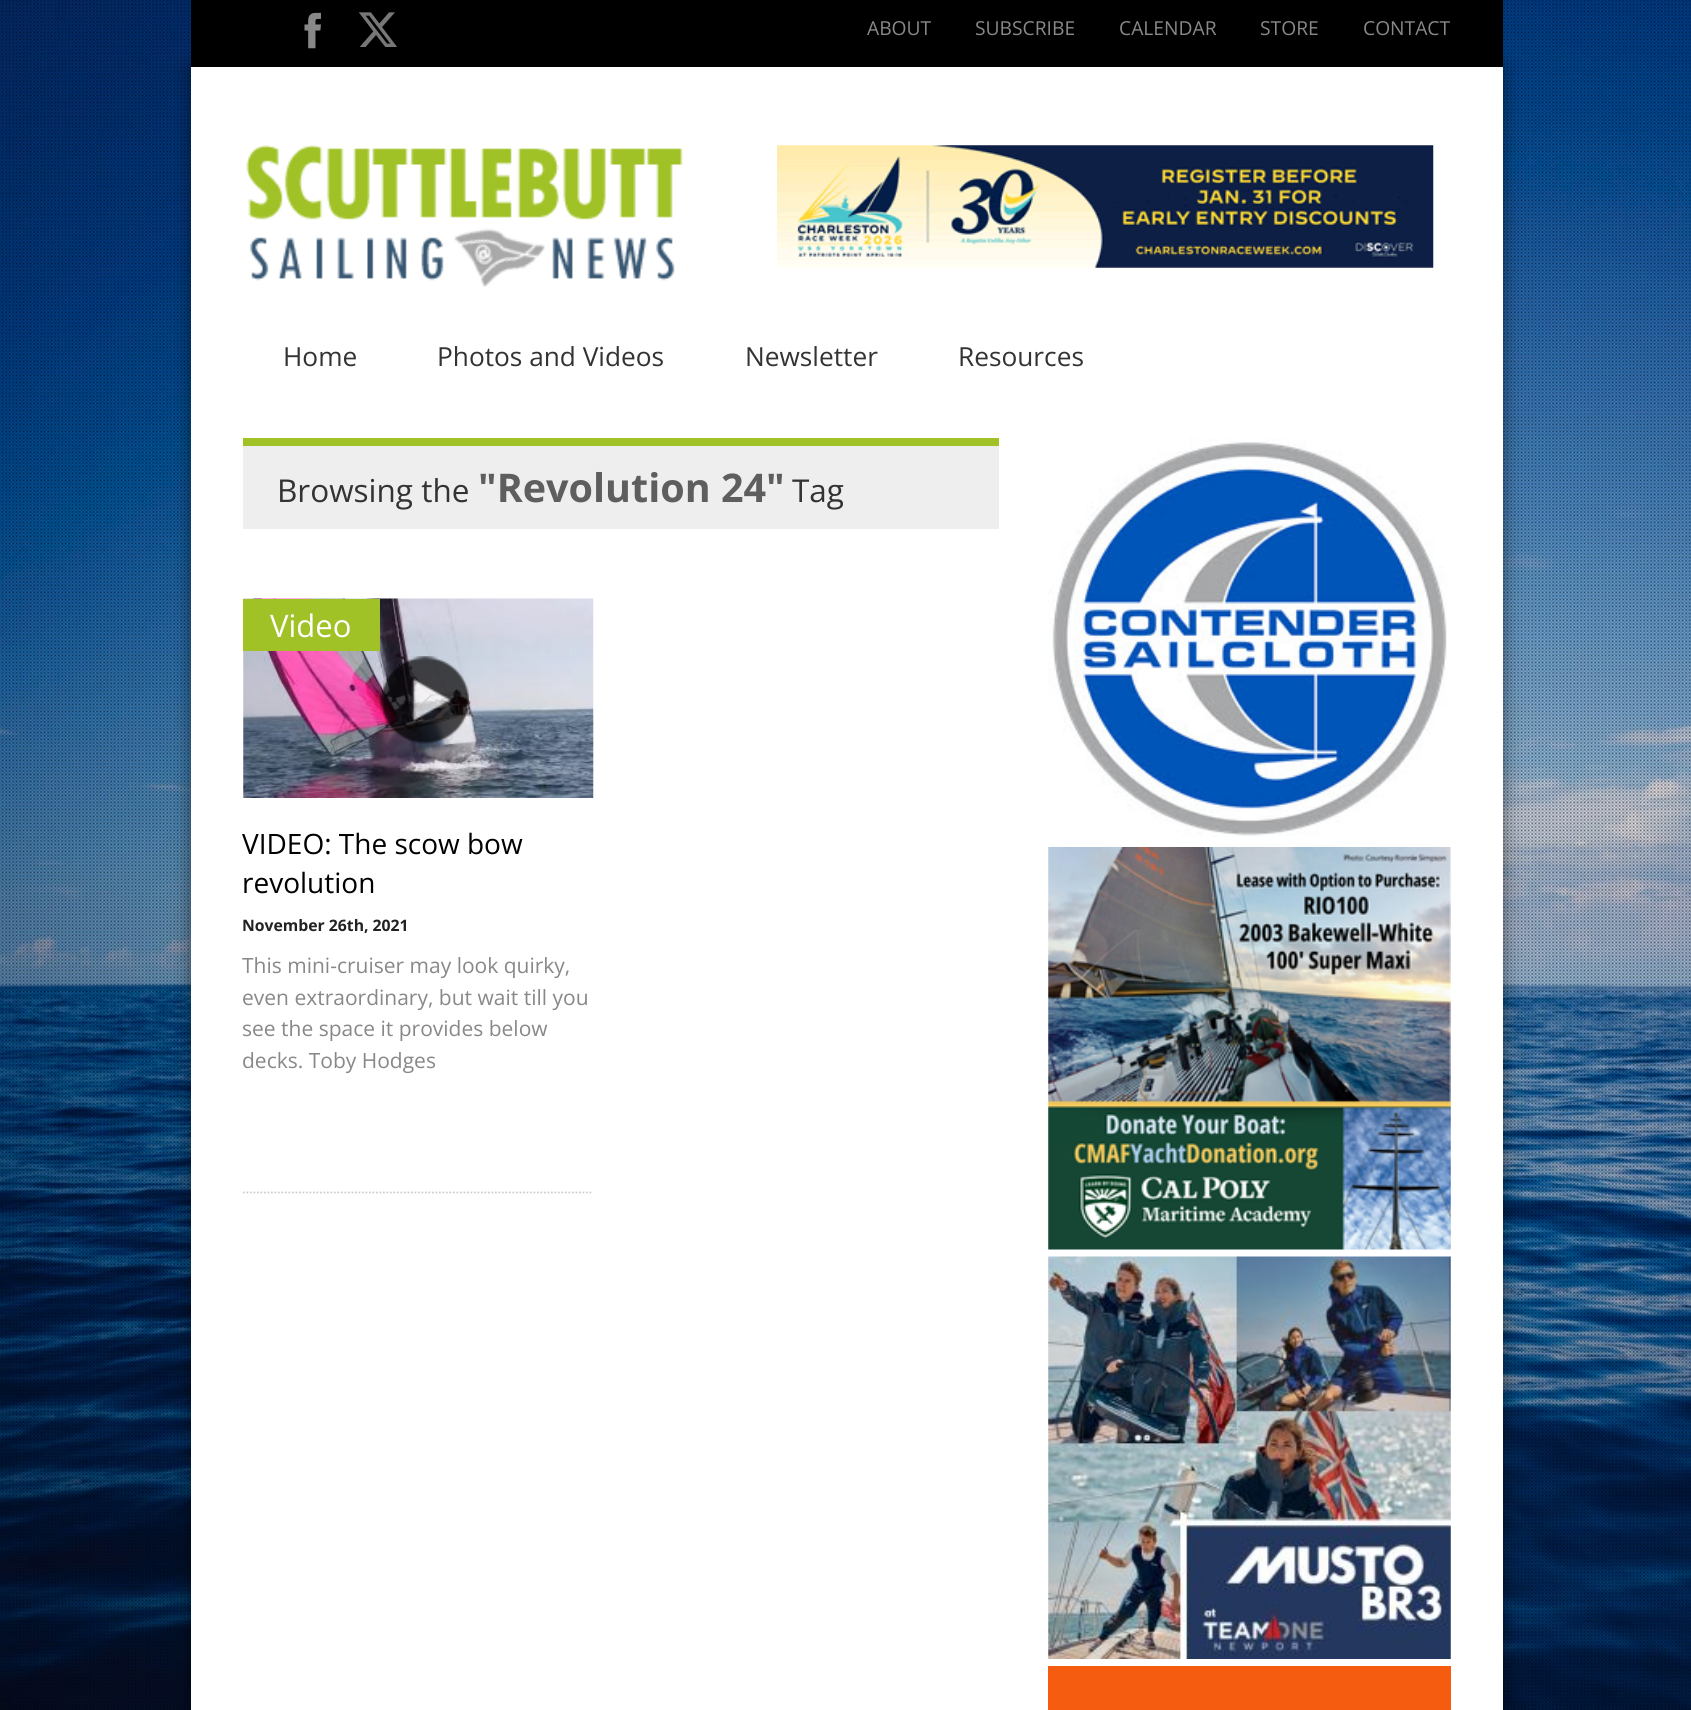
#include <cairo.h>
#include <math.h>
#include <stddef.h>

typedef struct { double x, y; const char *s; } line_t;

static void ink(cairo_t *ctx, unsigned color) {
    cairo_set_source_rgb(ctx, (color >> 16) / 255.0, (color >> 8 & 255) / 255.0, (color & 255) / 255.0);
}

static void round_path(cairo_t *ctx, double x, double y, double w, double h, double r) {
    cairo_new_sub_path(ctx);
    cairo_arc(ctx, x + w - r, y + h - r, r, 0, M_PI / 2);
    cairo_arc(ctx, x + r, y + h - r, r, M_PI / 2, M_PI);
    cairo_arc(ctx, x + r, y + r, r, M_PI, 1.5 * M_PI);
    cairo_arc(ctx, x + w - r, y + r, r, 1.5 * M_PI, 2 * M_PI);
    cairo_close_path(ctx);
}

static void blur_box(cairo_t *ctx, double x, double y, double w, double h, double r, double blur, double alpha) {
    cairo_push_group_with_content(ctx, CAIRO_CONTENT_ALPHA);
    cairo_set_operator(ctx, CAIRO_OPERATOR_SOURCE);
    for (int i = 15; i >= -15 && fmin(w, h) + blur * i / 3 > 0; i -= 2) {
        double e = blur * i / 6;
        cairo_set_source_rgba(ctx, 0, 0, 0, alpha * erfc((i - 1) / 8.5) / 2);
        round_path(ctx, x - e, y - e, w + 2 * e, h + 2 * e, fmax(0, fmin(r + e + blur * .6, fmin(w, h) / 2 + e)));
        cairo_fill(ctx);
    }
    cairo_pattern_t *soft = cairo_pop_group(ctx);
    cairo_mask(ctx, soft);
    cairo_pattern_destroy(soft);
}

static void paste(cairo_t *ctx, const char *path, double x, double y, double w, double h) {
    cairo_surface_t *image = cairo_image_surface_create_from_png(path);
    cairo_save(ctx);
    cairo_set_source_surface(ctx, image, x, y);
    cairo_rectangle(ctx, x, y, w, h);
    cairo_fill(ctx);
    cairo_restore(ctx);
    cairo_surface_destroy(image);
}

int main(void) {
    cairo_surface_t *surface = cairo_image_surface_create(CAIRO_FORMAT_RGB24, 1691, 1710);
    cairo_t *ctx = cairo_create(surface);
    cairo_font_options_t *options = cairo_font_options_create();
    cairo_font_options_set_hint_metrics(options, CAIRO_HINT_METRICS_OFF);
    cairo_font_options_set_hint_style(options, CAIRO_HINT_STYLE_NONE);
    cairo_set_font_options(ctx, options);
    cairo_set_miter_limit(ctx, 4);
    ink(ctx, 0xFFFFFF);
    cairo_paint(ctx);
    paste(ctx, "media/1.png", 0, 0, 1691, 1710);
    paste(ctx, "media/3.png", 145, 985, 1546, 402);
    paste(ctx, "media/2.png", 0, 0, 1691, 1710);
    ink(ctx, 0x000000);
    cairo_rectangle(ctx, 191, 0, 1312, 67);
    cairo_fill(ctx);
    ink(ctx, 0x000000);
    blur_box(ctx, 191, 67, 1312, 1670, 0, 9, 0.5);
    paste(ctx, "media/4.png", 304, 12, 17, 37);
    paste(ctx, "media/5.png", 359, 12, 38, 35);
    cairo_select_font_face(ctx, "Open Sans", CAIRO_FONT_SLANT_NORMAL, CAIRO_FONT_WEIGHT_NORMAL);
    cairo_set_font_size(ctx, 19.25);
    ink(ctx, 0x888888);
    {
        static const line_t items[] = {
            {867, 35, "ABOUT"},
            {975, 35, "SUBSCRIBE"},
            {1119, 35, "CALENDAR"},
            {1260, 35, "STORE"},
            {1363, 35, "CONTACT"},
        };
        for (size_t i = 0; i < sizeof items / sizeof *items; i++) {
            cairo_move_to(ctx, items[i].x, items[i].y);
            cairo_show_text(ctx, items[i].s);
        }
    }
    ink(ctx, 0xFFFFFF);
    cairo_rectangle(ctx, 191, 67, 1312, 1643);
    cairo_fill(ctx);
    paste(ctx, "media/6.png", 246, 145, 437, 142);
    paste(ctx, "media/7.png", 777, 145, 657, 123);
    cairo_set_font_size(ctx, 26.25);
    ink(ctx, 0x333333);
    {
        static const line_t items[] = {
            {283, 366, "Home"},
            {437, 366, "Photos and Videos"},
            {745, 366, "Newsletter"},
            {958, 366, "Resources"},
        };
        for (size_t i = 0; i < sizeof items / sizeof *items; i++) {
            cairo_move_to(ctx, items[i].x, items[i].y);
            cairo_show_text(ctx, items[i].s);
        }
    }
    ink(ctx, 0xEEEEEE);
    cairo_rectangle(ctx, 243, 446, 756, 83);
    cairo_fill(ctx);
    ink(ctx, 0xA0C227);
    cairo_rectangle(ctx, 243, 438, 756, 8);
    cairo_fill(ctx);
    cairo_set_font_size(ctx, 31.5);
    ink(ctx, 0x333333);
    cairo_move_to(ctx, 277, 502);
    cairo_show_text(ctx, "Browsing the");
    cairo_select_font_face(ctx, "Open Sans", CAIRO_FONT_SLANT_NORMAL, CAIRO_FONT_WEIGHT_BOLD);
    cairo_set_font_size(ctx, 39.5);
    ink(ctx, 0x5E5E5E);
    cairo_move_to(ctx, 478, 502);
    cairo_show_text(ctx, "\"Revolution 24\"");
    cairo_select_font_face(ctx, "Open Sans", CAIRO_FONT_SLANT_NORMAL, CAIRO_FONT_WEIGHT_NORMAL);
    cairo_set_font_size(ctx, 31.5);
    ink(ctx, 0x333333);
    cairo_move_to(ctx, 792, 502);
    cairo_show_text(ctx, "Tag");
    cairo_new_path(ctx);
    cairo_move_to(ctx, 243, 1192.5);
    cairo_line_to(ctx, 593, 1192.5);
    ink(ctx, 0xCCCCCC);
    cairo_set_line_width(ctx, 1.8);
    cairo_set_dash(ctx, (double[]){1.75, 1.75}, 2, 0);
    cairo_stroke(ctx);
    paste(ctx, "media/8.png", 243, 598, 351, 200);
    paste(ctx, "media/9.png", 379, 656, 90, 88);
    ink(ctx, 0xA0C227);
    cairo_rectangle(ctx, 243, 599, 137, 52);
    cairo_fill(ctx);
    cairo_set_font_size(ctx, 31);
    ink(ctx, 0xFFFFFF);
    cairo_move_to(ctx, 270, 637);
    cairo_show_text(ctx, "Video");
    cairo_set_font_size(ctx, 28);
    ink(ctx, 0x000000);
    cairo_move_to(ctx, 242, 854);
    cairo_show_text(ctx, "VIDEO: The scow bow");
    cairo_move_to(ctx, 242, 893);
    cairo_show_text(ctx, "revolution");
    cairo_select_font_face(ctx, "Open Sans", CAIRO_FONT_SLANT_NORMAL, CAIRO_FONT_WEIGHT_BOLD);
    cairo_set_font_size(ctx, 15.75);
    ink(ctx, 0x222222);
    cairo_move_to(ctx, 242, 931);
    cairo_show_text(ctx, "November 26th, 2021");
    cairo_select_font_face(ctx, "Open Sans", CAIRO_FONT_SLANT_NORMAL, CAIRO_FONT_WEIGHT_NORMAL);
    cairo_set_font_size(ctx, 21);
    ink(ctx, 0x888888);
    {
        static const line_t items[] = {
            {242, 973, "This mini-cruiser may look quirky,"},
            {242, 1005, "even extraordinary, but wait till you"},
            {242, 1036, "see the space it provides below"},
            {242, 1068, "decks. Toby Hodges"},
        };
        for (size_t i = 0; i < sizeof items / sizeof *items; i++) {
            cairo_move_to(ctx, items[i].x, items[i].y);
            cairo_show_text(ctx, items[i].s);
        }
    }
    paste(ctx, "media/10.png", 1048, 438, 399, 399);
    paste(ctx, "media/11.png", 1048, 847, 403, 403);
    paste(ctx, "media/12.png", 1048, 1256, 403, 403);
    ink(ctx, 0xF55C10);
    cairo_rectangle(ctx, 1048, 1666, 403, 44);
    cairo_fill(ctx);
    cairo_surface_write_to_png(surface, "image.png");
    cairo_font_options_destroy(options);
    cairo_destroy(ctx);
    cairo_surface_destroy(surface);
    return 0;
}
